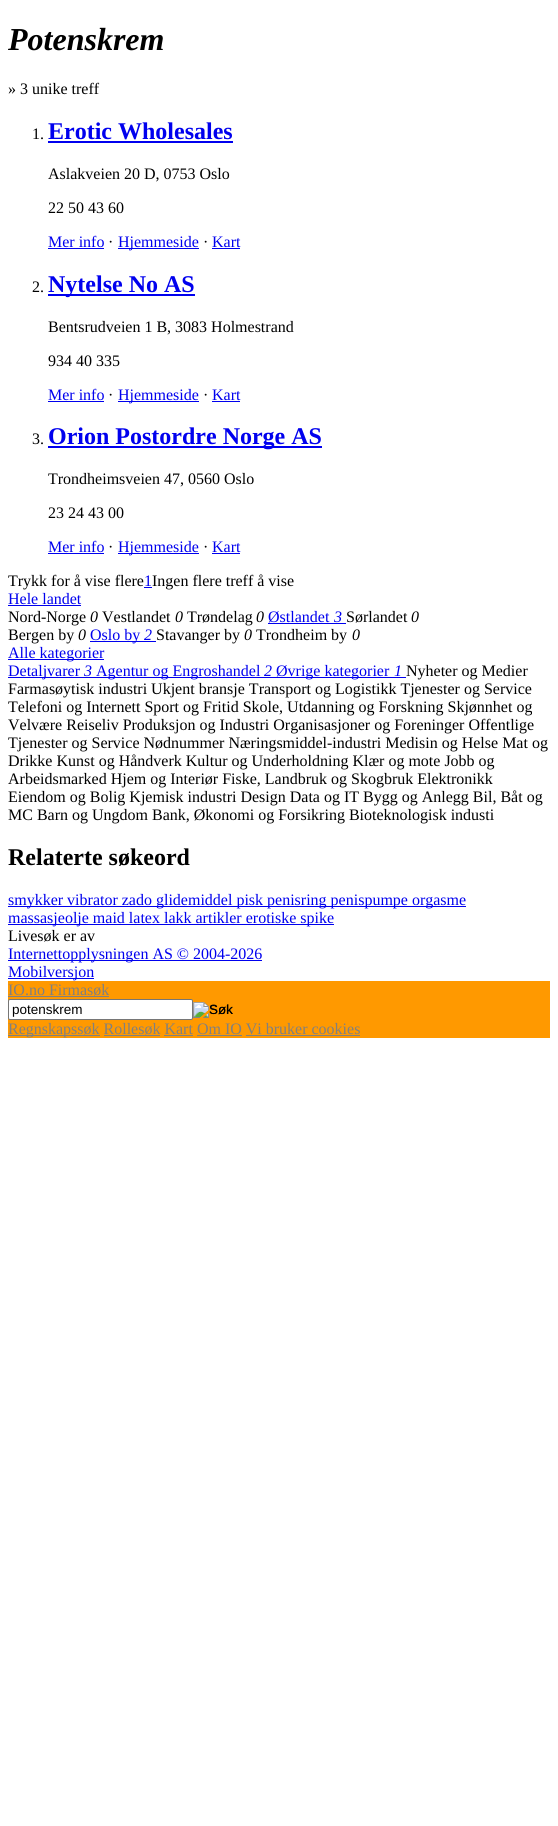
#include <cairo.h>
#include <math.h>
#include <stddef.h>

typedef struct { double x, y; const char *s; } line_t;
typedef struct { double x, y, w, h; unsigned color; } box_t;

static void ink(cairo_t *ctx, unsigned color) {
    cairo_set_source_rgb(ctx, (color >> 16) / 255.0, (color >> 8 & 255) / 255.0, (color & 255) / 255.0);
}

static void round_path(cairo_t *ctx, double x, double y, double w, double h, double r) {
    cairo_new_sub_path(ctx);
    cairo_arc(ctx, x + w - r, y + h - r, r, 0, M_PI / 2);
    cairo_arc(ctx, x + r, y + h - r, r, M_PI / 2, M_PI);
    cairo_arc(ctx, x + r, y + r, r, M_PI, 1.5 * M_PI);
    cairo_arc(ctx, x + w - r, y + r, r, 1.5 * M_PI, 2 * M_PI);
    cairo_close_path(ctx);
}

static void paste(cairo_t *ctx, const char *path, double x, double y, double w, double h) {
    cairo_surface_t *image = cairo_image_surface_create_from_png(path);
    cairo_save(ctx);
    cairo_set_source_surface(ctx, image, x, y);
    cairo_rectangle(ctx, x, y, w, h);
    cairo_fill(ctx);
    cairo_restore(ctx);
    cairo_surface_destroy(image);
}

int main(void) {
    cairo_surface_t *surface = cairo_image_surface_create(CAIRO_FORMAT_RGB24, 558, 1826);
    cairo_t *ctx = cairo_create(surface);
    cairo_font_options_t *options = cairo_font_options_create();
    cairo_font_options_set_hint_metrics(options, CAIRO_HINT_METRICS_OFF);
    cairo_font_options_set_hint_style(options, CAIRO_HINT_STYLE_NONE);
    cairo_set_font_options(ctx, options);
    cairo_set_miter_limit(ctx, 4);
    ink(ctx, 0xFFFFFF);
    cairo_paint(ctx);
    cairo_select_font_face(ctx, "Liberation Serif", CAIRO_FONT_SLANT_ITALIC, CAIRO_FONT_WEIGHT_BOLD);
    cairo_set_font_size(ctx, 32);
    ink(ctx, 0x000000);
    cairo_move_to(ctx, 8, 50);
    cairo_show_text(ctx, "Potenskrem");
    cairo_select_font_face(ctx, "Liberation Serif", CAIRO_FONT_SLANT_NORMAL, CAIRO_FONT_WEIGHT_NORMAL);
    cairo_set_font_size(ctx, 16);
    cairo_move_to(ctx, 8, 94);
    cairo_show_text(ctx, "» 3 unike treff");
    cairo_move_to(ctx, 32, 139);
    cairo_show_text(ctx, "1.");
    cairo_select_font_face(ctx, "Liberation Serif", CAIRO_FONT_SLANT_NORMAL, CAIRO_FONT_WEIGHT_BOLD);
    cairo_set_font_size(ctx, 24);
    ink(ctx, 0x0000EE);
    cairo_move_to(ctx, 48, 139);
    cairo_show_text(ctx, "Erotic Wholesales");
    cairo_rectangle(ctx, 48, 141, 185, 2);
    cairo_fill(ctx);
    cairo_select_font_face(ctx, "Liberation Serif", CAIRO_FONT_SLANT_NORMAL, CAIRO_FONT_WEIGHT_NORMAL);
    cairo_set_font_size(ctx, 16);
    ink(ctx, 0x000000);
    cairo_move_to(ctx, 48, 179);
    cairo_show_text(ctx, "Aslakveien 20 D, 0753 Oslo");
    cairo_move_to(ctx, 48, 213);
    cairo_show_text(ctx, "22 50 43 60");
    ink(ctx, 0x0000EE);
    cairo_move_to(ctx, 48, 247);
    cairo_show_text(ctx, "Mer info");
    cairo_rectangle(ctx, 48, 248, 56, 1);
    cairo_fill(ctx);
    ink(ctx, 0x000000);
    cairo_move_to(ctx, 108, 247);
    cairo_show_text(ctx, "·");
    ink(ctx, 0x0000EE);
    cairo_rectangle(ctx, 118, 248, 81, 1);
    cairo_fill(ctx);
    cairo_move_to(ctx, 118, 247);
    cairo_show_text(ctx, "Hjemmeside");
    ink(ctx, 0x000000);
    cairo_move_to(ctx, 203, 247);
    cairo_show_text(ctx, "·");
    ink(ctx, 0x0000EE);
    cairo_move_to(ctx, 212, 247);
    cairo_show_text(ctx, "Kart");
    cairo_rectangle(ctx, 212, 248, 28, 1);
    cairo_fill(ctx);
    ink(ctx, 0x000000);
    cairo_move_to(ctx, 32, 292);
    cairo_show_text(ctx, "2.");
    ink(ctx, 0x0000EE);
    cairo_rectangle(ctx, 48, 294, 147, 2);
    cairo_fill(ctx);
    cairo_select_font_face(ctx, "Liberation Serif", CAIRO_FONT_SLANT_NORMAL, CAIRO_FONT_WEIGHT_BOLD);
    cairo_set_font_size(ctx, 24);
    cairo_move_to(ctx, 48, 292);
    cairo_show_text(ctx, "Nytelse No AS");
    cairo_select_font_face(ctx, "Liberation Serif", CAIRO_FONT_SLANT_NORMAL, CAIRO_FONT_WEIGHT_NORMAL);
    cairo_set_font_size(ctx, 16);
    ink(ctx, 0x000000);
    cairo_move_to(ctx, 48, 332);
    cairo_show_text(ctx, "Bentsrudveien 1 B, 3083 Holmestrand");
    cairo_move_to(ctx, 48, 366);
    cairo_show_text(ctx, "934 40 335");
    ink(ctx, 0x0000EE);
    cairo_move_to(ctx, 48, 400);
    cairo_show_text(ctx, "Mer info");
    cairo_rectangle(ctx, 48, 401, 56, 1);
    cairo_fill(ctx);
    ink(ctx, 0x000000);
    cairo_move_to(ctx, 108, 400);
    cairo_show_text(ctx, "·");
    ink(ctx, 0x0000EE);
    cairo_rectangle(ctx, 118, 401, 81, 1);
    cairo_fill(ctx);
    cairo_move_to(ctx, 118, 400);
    cairo_show_text(ctx, "Hjemmeside");
    ink(ctx, 0x000000);
    cairo_move_to(ctx, 203, 400);
    cairo_show_text(ctx, "·");
    ink(ctx, 0x0000EE);
    cairo_move_to(ctx, 212, 400);
    cairo_show_text(ctx, "Kart");
    cairo_rectangle(ctx, 212, 401, 28, 1);
    cairo_fill(ctx);
    ink(ctx, 0x000000);
    cairo_move_to(ctx, 32, 444);
    cairo_show_text(ctx, "3.");
    ink(ctx, 0x0000EE);
    cairo_rectangle(ctx, 48, 446, 274, 2);
    cairo_fill(ctx);
    cairo_select_font_face(ctx, "Liberation Serif", CAIRO_FONT_SLANT_NORMAL, CAIRO_FONT_WEIGHT_BOLD);
    cairo_set_font_size(ctx, 24);
    cairo_move_to(ctx, 48, 444);
    cairo_show_text(ctx, "Orion Postordre Norge AS");
    cairo_select_font_face(ctx, "Liberation Serif", CAIRO_FONT_SLANT_NORMAL, CAIRO_FONT_WEIGHT_NORMAL);
    cairo_set_font_size(ctx, 16);
    ink(ctx, 0x000000);
    cairo_move_to(ctx, 48, 484);
    cairo_show_text(ctx, "Trondheimsveien 47, 0560 Oslo");
    cairo_move_to(ctx, 48, 518);
    cairo_show_text(ctx, "23 24 43 00");
    ink(ctx, 0x0000EE);
    cairo_move_to(ctx, 48, 552);
    cairo_show_text(ctx, "Mer info");
    cairo_rectangle(ctx, 48, 553, 56, 1);
    cairo_fill(ctx);
    ink(ctx, 0x000000);
    cairo_move_to(ctx, 108, 552);
    cairo_show_text(ctx, "·");
    ink(ctx, 0x0000EE);
    cairo_rectangle(ctx, 118, 553, 81, 1);
    cairo_fill(ctx);
    cairo_move_to(ctx, 118, 552);
    cairo_show_text(ctx, "Hjemmeside");
    ink(ctx, 0x000000);
    cairo_move_to(ctx, 203, 552);
    cairo_show_text(ctx, "·");
    ink(ctx, 0x0000EE);
    cairo_move_to(ctx, 212, 552);
    cairo_show_text(ctx, "Kart");
    cairo_rectangle(ctx, 212, 553, 28, 1);
    cairo_fill(ctx);
    ink(ctx, 0x000000);
    cairo_move_to(ctx, 8, 586);
    cairo_show_text(ctx, "Trykk for å vise flere");
    ink(ctx, 0x0000EE);
    cairo_move_to(ctx, 144, 586);
    cairo_show_text(ctx, "1");
    cairo_rectangle(ctx, 144, 587, 8, 1);
    cairo_fill(ctx);
    ink(ctx, 0x000000);
    cairo_move_to(ctx, 152, 586);
    cairo_show_text(ctx, "Ingen flere treff å vise");
    ink(ctx, 0x0000EE);
    cairo_move_to(ctx, 8, 604);
    cairo_show_text(ctx, "Hele landet");
    cairo_rectangle(ctx, 8, 605, 73, 1);
    cairo_fill(ctx);
    ink(ctx, 0x000000);
    cairo_move_to(ctx, 8, 622);
    cairo_show_text(ctx, "Nord-Norge");
    cairo_select_font_face(ctx, "Liberation Serif", CAIRO_FONT_SLANT_ITALIC, CAIRO_FONT_WEIGHT_NORMAL);
    cairo_move_to(ctx, 90, 622);
    cairo_show_text(ctx, "0");
    cairo_select_font_face(ctx, "Liberation Serif", CAIRO_FONT_SLANT_NORMAL, CAIRO_FONT_WEIGHT_NORMAL);
    cairo_move_to(ctx, 102, 622);
    cairo_show_text(ctx, "Vestlandet");
    cairo_select_font_face(ctx, "Liberation Serif", CAIRO_FONT_SLANT_ITALIC, CAIRO_FONT_WEIGHT_NORMAL);
    cairo_move_to(ctx, 175, 622);
    cairo_show_text(ctx, "0");
    cairo_select_font_face(ctx, "Liberation Serif", CAIRO_FONT_SLANT_NORMAL, CAIRO_FONT_WEIGHT_NORMAL);
    cairo_move_to(ctx, 187, 622);
    cairo_show_text(ctx, "Trøndelag");
    cairo_select_font_face(ctx, "Liberation Serif", CAIRO_FONT_SLANT_ITALIC, CAIRO_FONT_WEIGHT_NORMAL);
    cairo_move_to(ctx, 256, 622);
    cairo_show_text(ctx, "0");
    cairo_select_font_face(ctx, "Liberation Serif", CAIRO_FONT_SLANT_NORMAL, CAIRO_FONT_WEIGHT_NORMAL);
    ink(ctx, 0x0000EE);
    cairo_move_to(ctx, 268, 622);
    cairo_show_text(ctx, "Østlandet");
    cairo_select_font_face(ctx, "Liberation Serif", CAIRO_FONT_SLANT_ITALIC, CAIRO_FONT_WEIGHT_NORMAL);
    cairo_move_to(ctx, 334, 622);
    cairo_show_text(ctx, "3");
    cairo_rectangle(ctx, 268, 623, 78, 1);
    cairo_fill(ctx);
    cairo_select_font_face(ctx, "Liberation Serif", CAIRO_FONT_SLANT_NORMAL, CAIRO_FONT_WEIGHT_NORMAL);
    ink(ctx, 0x000000);
    cairo_move_to(ctx, 346, 622);
    cairo_show_text(ctx, "Sørlandet");
    cairo_select_font_face(ctx, "Liberation Serif", CAIRO_FONT_SLANT_ITALIC, CAIRO_FONT_WEIGHT_NORMAL);
    cairo_move_to(ctx, 411, 622);
    cairo_show_text(ctx, "0");
    cairo_select_font_face(ctx, "Liberation Serif", CAIRO_FONT_SLANT_NORMAL, CAIRO_FONT_WEIGHT_NORMAL);
    cairo_move_to(ctx, 8, 640);
    cairo_show_text(ctx, "Bergen by");
    cairo_select_font_face(ctx, "Liberation Serif", CAIRO_FONT_SLANT_ITALIC, CAIRO_FONT_WEIGHT_NORMAL);
    cairo_move_to(ctx, 78, 640);
    cairo_show_text(ctx, "0");
    ink(ctx, 0x0000EE);
    cairo_rectangle(ctx, 90, 641, 66, 1);
    cairo_fill(ctx);
    cairo_select_font_face(ctx, "Liberation Serif", CAIRO_FONT_SLANT_NORMAL, CAIRO_FONT_WEIGHT_NORMAL);
    cairo_move_to(ctx, 90, 640);
    cairo_show_text(ctx, "Oslo by");
    cairo_select_font_face(ctx, "Liberation Serif", CAIRO_FONT_SLANT_ITALIC, CAIRO_FONT_WEIGHT_NORMAL);
    cairo_move_to(ctx, 144, 640);
    cairo_show_text(ctx, "2");
    cairo_select_font_face(ctx, "Liberation Serif", CAIRO_FONT_SLANT_NORMAL, CAIRO_FONT_WEIGHT_NORMAL);
    ink(ctx, 0x000000);
    cairo_move_to(ctx, 156, 640);
    cairo_show_text(ctx, "Stavanger by");
    cairo_select_font_face(ctx, "Liberation Serif", CAIRO_FONT_SLANT_ITALIC, CAIRO_FONT_WEIGHT_NORMAL);
    cairo_move_to(ctx, 244, 640);
    cairo_show_text(ctx, "0");
    cairo_select_font_face(ctx, "Liberation Serif", CAIRO_FONT_SLANT_NORMAL, CAIRO_FONT_WEIGHT_NORMAL);
    cairo_move_to(ctx, 256, 640);
    cairo_show_text(ctx, "Trondheim by");
    cairo_select_font_face(ctx, "Liberation Serif", CAIRO_FONT_SLANT_ITALIC, CAIRO_FONT_WEIGHT_NORMAL);
    cairo_move_to(ctx, 352, 640);
    cairo_show_text(ctx, "0");
    ink(ctx, 0x0000EE);
    cairo_rectangle(ctx, 8, 659, 96, 1);
    cairo_fill(ctx);
    cairo_select_font_face(ctx, "Liberation Serif", CAIRO_FONT_SLANT_NORMAL, CAIRO_FONT_WEIGHT_NORMAL);
    cairo_move_to(ctx, 8, 658);
    cairo_show_text(ctx, "Alle kategorier");
    cairo_rectangle(ctx, 8, 677, 398, 1);
    cairo_fill(ctx);
    cairo_move_to(ctx, 8, 676);
    cairo_show_text(ctx, "Detaljvarer");
    cairo_select_font_face(ctx, "Liberation Serif", CAIRO_FONT_SLANT_ITALIC, CAIRO_FONT_WEIGHT_NORMAL);
    cairo_move_to(ctx, 84, 676);
    cairo_show_text(ctx, "3");
    cairo_select_font_face(ctx, "Liberation Serif", CAIRO_FONT_SLANT_NORMAL, CAIRO_FONT_WEIGHT_NORMAL);
    cairo_move_to(ctx, 96, 676);
    cairo_show_text(ctx, "Agentur og Engroshandel");
    cairo_select_font_face(ctx, "Liberation Serif", CAIRO_FONT_SLANT_ITALIC, CAIRO_FONT_WEIGHT_NORMAL);
    cairo_move_to(ctx, 264, 676);
    cairo_show_text(ctx, "2");
    cairo_select_font_face(ctx, "Liberation Serif", CAIRO_FONT_SLANT_NORMAL, CAIRO_FONT_WEIGHT_NORMAL);
    cairo_move_to(ctx, 276, 676);
    cairo_show_text(ctx, "Øvrige kategorier");
    cairo_select_font_face(ctx, "Liberation Serif", CAIRO_FONT_SLANT_ITALIC, CAIRO_FONT_WEIGHT_NORMAL);
    cairo_move_to(ctx, 394, 676);
    cairo_show_text(ctx, "1");
    cairo_select_font_face(ctx, "Liberation Serif", CAIRO_FONT_SLANT_NORMAL, CAIRO_FONT_WEIGHT_NORMAL);
    ink(ctx, 0x000000);
    {
        static const line_t items[] = {
            {406, 676, "Nyheter og Medier"},
            {8, 694, "Farmasøytisk industri Ukjent bransje Transport og Logistikk Tjenester og Service"},
            {8, 712, "Telefoni og Internett Sport og Fritid Skole, Utdanning og Forskning Skjønnhet og"},
            {8, 730, "Velvære Reiseliv Produksjon og Industri Organisasjoner og Foreninger Offentlige"},
            {8, 748, "Tjenester og Service Nødnummer Næringsmiddel-industri Medisin og Helse Mat og"},
            {8, 766, "Drikke Kunst og Håndverk Kultur og Underholdning Klær og mote Jobb og"},
            {8, 784, "Arbeidsmarked Hjem og Interiør Fiske, Landbruk og Skogbruk Elektronikk"},
            {8, 802, "Eiendom og Bolig Kjemisk industri Design Data og IT Bygg og Anlegg Bil, Båt og"},
            {8, 820, "MC Barn og Ungdom Bank, Økonomi og Forsikring Bioteknologisk industi"},
        };
        for (size_t i = 0; i < sizeof items / sizeof *items; i++) {
            cairo_move_to(ctx, items[i].x, items[i].y);
            cairo_show_text(ctx, items[i].s);
        }
    }
    cairo_select_font_face(ctx, "Liberation Serif", CAIRO_FONT_SLANT_NORMAL, CAIRO_FONT_WEIGHT_BOLD);
    cairo_set_font_size(ctx, 24);
    cairo_move_to(ctx, 8, 865);
    cairo_show_text(ctx, "Relaterte søkeord");
    ink(ctx, 0x0000EE);
    cairo_rectangle(ctx, 8, 906, 458, 1);
    cairo_fill(ctx);
    cairo_select_font_face(ctx, "Liberation Serif", CAIRO_FONT_SLANT_NORMAL, CAIRO_FONT_WEIGHT_NORMAL);
    cairo_set_font_size(ctx, 16);
    cairo_move_to(ctx, 8, 905);
    cairo_show_text(ctx, "smykker vibrator zado glidemiddel pisk penisring penispumpe orgasme");
    cairo_rectangle(ctx, 8, 924, 326, 1);
    cairo_fill(ctx);
    cairo_move_to(ctx, 8, 923);
    cairo_show_text(ctx, "massasjeolje maid latex lakk artikler erotiske spike");
    ink(ctx, 0x000000);
    cairo_move_to(ctx, 8, 941);
    cairo_show_text(ctx, "Livesøk er av");
    ink(ctx, 0x0000EE);
    cairo_rectangle(ctx, 8, 960, 254, 1);
    cairo_fill(ctx);
    cairo_move_to(ctx, 8, 959);
    cairo_show_text(ctx, "Internettopplysningen AS © 2004-2026");
    cairo_rectangle(ctx, 8, 978, 86, 1);
    cairo_fill(ctx);
    cairo_move_to(ctx, 8, 977);
    cairo_show_text(ctx, "Mobilversjon");
    ink(ctx, 0xFF9900);
    cairo_rectangle(ctx, 8, 981, 542, 57);
    cairo_fill(ctx);
    ink(ctx, 0x808080);
    cairo_move_to(ctx, 8, 995);
    cairo_show_text(ctx, "IO.no Firmasøk");
    cairo_rectangle(ctx, 8, 996, 101, 1);
    cairo_fill(ctx);
    ink(ctx, 0xFFFFFF);
    round_path(ctx, 8.5, 999.5, 184, 20, 1.5);
    cairo_fill_preserve(ctx);
    ink(ctx, 0x767676);
    cairo_set_line_width(ctx, 1);
    cairo_stroke(ctx);
    cairo_select_font_face(ctx, "Liberation Sans", CAIRO_FONT_SLANT_NORMAL, CAIRO_FONT_WEIGHT_NORMAL);
    cairo_set_font_size(ctx, 13.5);
    ink(ctx, 0x000000);
    cairo_move_to(ctx, 12, 1014);
    cairo_show_text(ctx, "potenskrem");
    paste(ctx, "media/1.png", 193, 1002, 40, 16);
    cairo_move_to(ctx, 209, 1014);
    cairo_show_text(ctx, "Søk");
    ink(ctx, 0x808080);
    cairo_rectangle(ctx, 8, 1035, 92, 1);
    cairo_fill(ctx);
    cairo_select_font_face(ctx, "Liberation Serif", CAIRO_FONT_SLANT_NORMAL, CAIRO_FONT_WEIGHT_NORMAL);
    cairo_set_font_size(ctx, 16);
    cairo_move_to(ctx, 8, 1034);
    cairo_show_text(ctx, "Regnskapssøk Rollesøk Kart Om IO Vi bruker cookies");
    {
        static const box_t items[] = {
            {104, 1035, 56, 1, 0x808080},
            {164, 1035, 29, 1, 0x808080},
            {197, 1035, 45, 1, 0x808080},
            {246, 1035, 114, 1, 0x808080},
        };
        for (size_t i = 0; i < sizeof items / sizeof *items; i++) {
            ink(ctx, items[i].color);
            cairo_rectangle(ctx, items[i].x, items[i].y, items[i].w, items[i].h);
            cairo_fill(ctx);
        }
    }
    cairo_surface_write_to_png(surface, "image.png");
    cairo_font_options_destroy(options);
    cairo_destroy(ctx);
    cairo_surface_destroy(surface);
    return 0;
}
